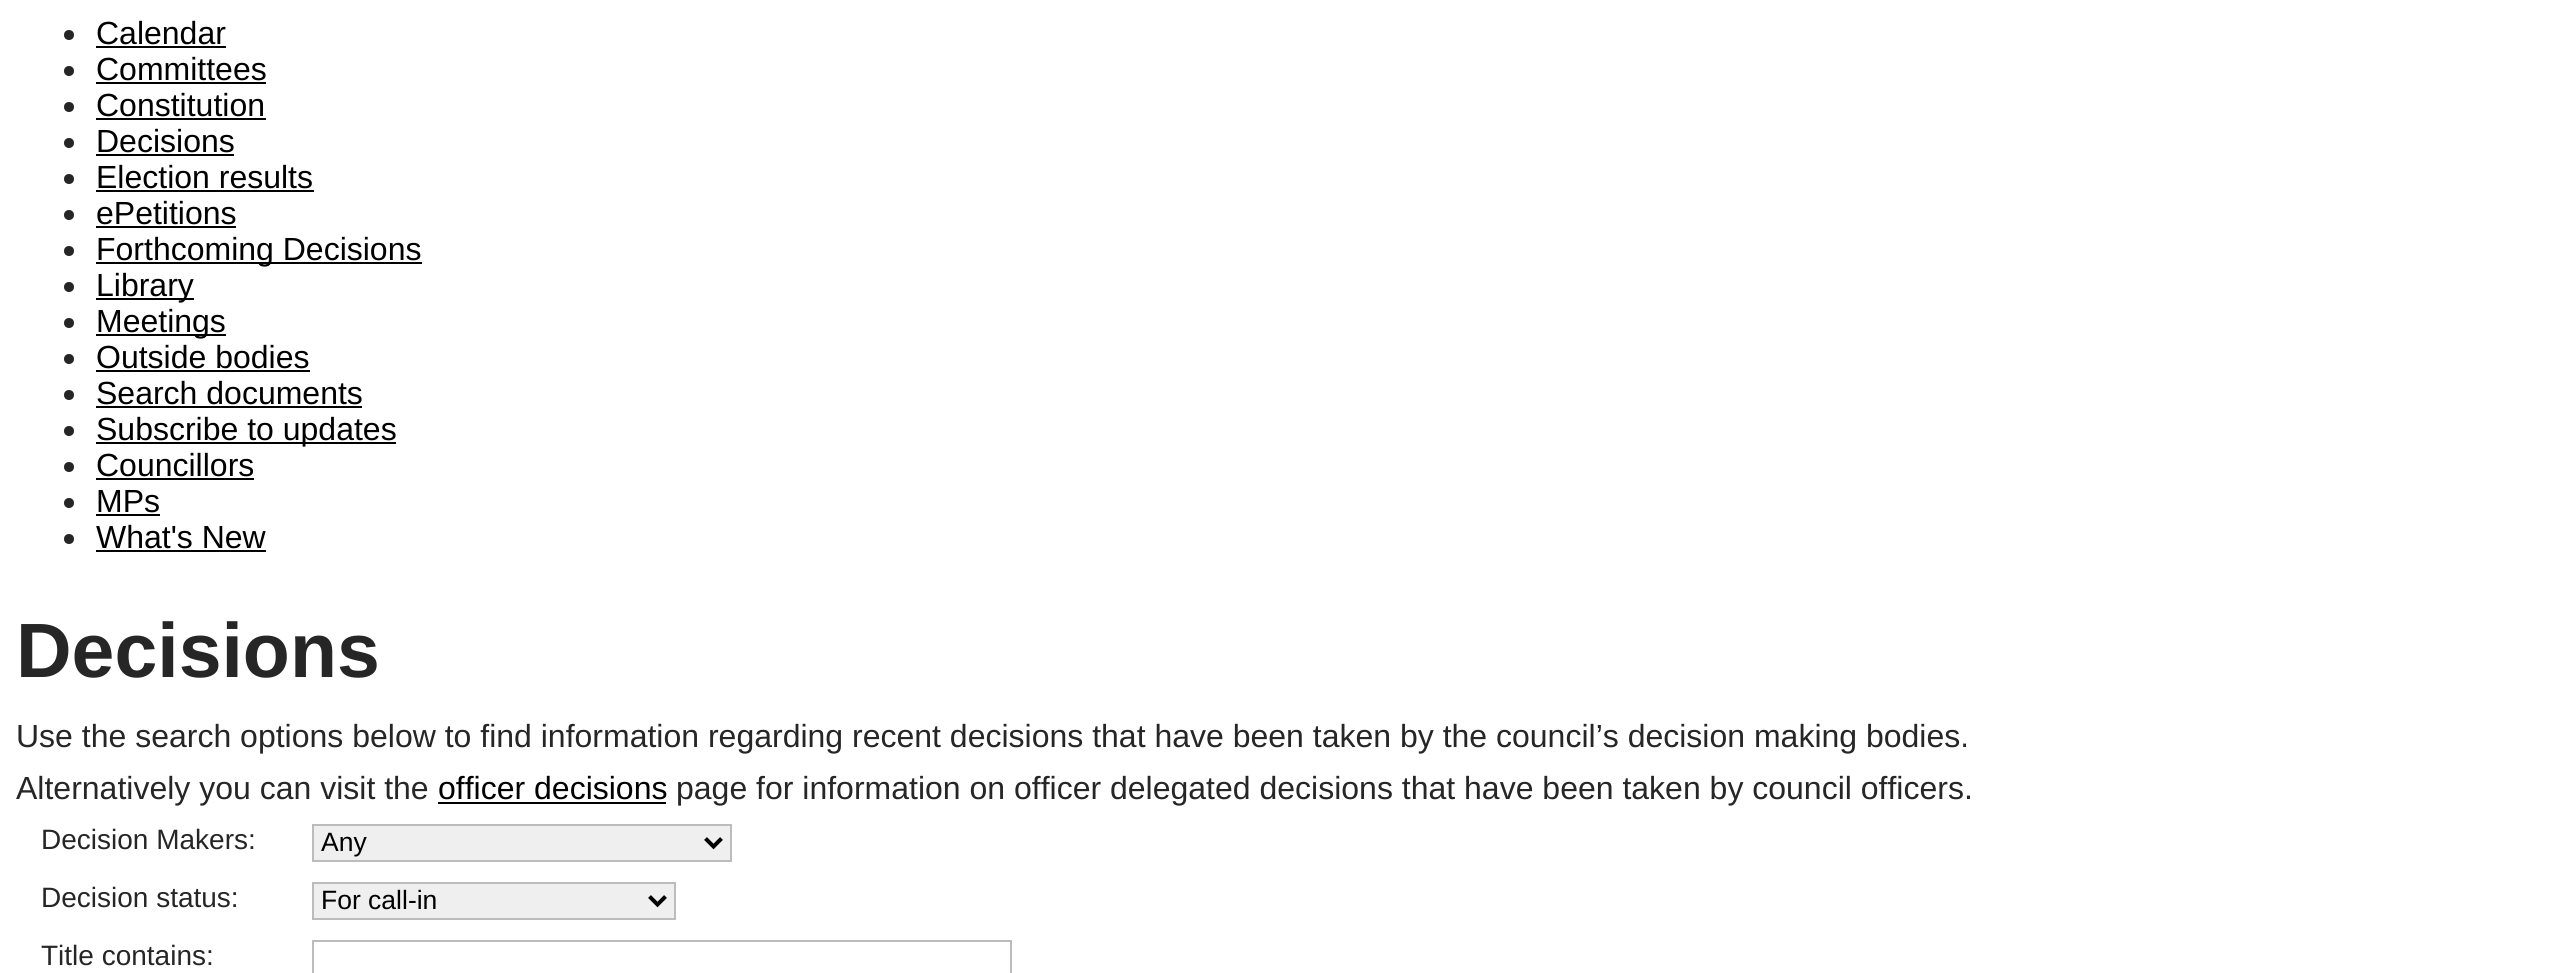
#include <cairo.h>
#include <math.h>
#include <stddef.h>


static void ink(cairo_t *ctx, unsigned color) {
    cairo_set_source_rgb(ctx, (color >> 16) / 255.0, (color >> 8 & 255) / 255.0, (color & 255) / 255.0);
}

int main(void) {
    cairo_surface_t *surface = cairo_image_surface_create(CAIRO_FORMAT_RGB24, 2562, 973);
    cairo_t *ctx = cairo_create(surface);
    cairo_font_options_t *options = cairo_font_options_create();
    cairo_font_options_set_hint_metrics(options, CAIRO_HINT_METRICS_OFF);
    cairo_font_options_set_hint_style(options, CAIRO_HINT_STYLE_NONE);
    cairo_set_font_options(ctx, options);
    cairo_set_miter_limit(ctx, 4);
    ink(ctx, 0xFFFFFF);
    cairo_paint(ctx);
    ink(ctx, 0x262626);
    cairo_arc(ctx, 69, 35, 5, 0, 2 * M_PI);
    cairo_fill(ctx);
    cairo_select_font_face(ctx, "Liberation Sans", CAIRO_FONT_SLANT_NORMAL, CAIRO_FONT_WEIGHT_NORMAL);
    cairo_set_font_size(ctx, 32);
    ink(ctx, 0x000000);
    cairo_move_to(ctx, 96, 44);
    cairo_show_text(ctx, "Calendar");
    cairo_rectangle(ctx, 96, 46, 130, 2);
    cairo_fill(ctx);
    ink(ctx, 0x262626);
    cairo_arc(ctx, 69, 71, 5, 0, 2 * M_PI);
    cairo_fill(ctx);
    ink(ctx, 0x000000);
    cairo_move_to(ctx, 96, 80);
    cairo_show_text(ctx, "Committees");
    cairo_rectangle(ctx, 96, 82, 170, 2);
    cairo_fill(ctx);
    ink(ctx, 0x262626);
    cairo_arc(ctx, 69, 107, 5, 0, 2 * M_PI);
    cairo_fill(ctx);
    ink(ctx, 0x000000);
    cairo_move_to(ctx, 96, 116);
    cairo_show_text(ctx, "Constitution");
    cairo_rectangle(ctx, 96, 118, 170, 2);
    cairo_fill(ctx);
    ink(ctx, 0x262626);
    cairo_arc(ctx, 69, 143, 5, 0, 2 * M_PI);
    cairo_fill(ctx);
    ink(ctx, 0x000000);
    cairo_move_to(ctx, 96, 152);
    cairo_show_text(ctx, "Decisions");
    cairo_rectangle(ctx, 96, 154, 138, 2);
    cairo_fill(ctx);
    ink(ctx, 0x262626);
    cairo_arc(ctx, 69, 179, 5, 0, 2 * M_PI);
    cairo_fill(ctx);
    ink(ctx, 0x000000);
    cairo_move_to(ctx, 96, 188);
    cairo_show_text(ctx, "Election results");
    cairo_rectangle(ctx, 96, 190, 218, 2);
    cairo_fill(ctx);
    ink(ctx, 0x262626);
    cairo_arc(ctx, 69, 215, 5, 0, 2 * M_PI);
    cairo_fill(ctx);
    ink(ctx, 0x000000);
    cairo_move_to(ctx, 96, 224);
    cairo_show_text(ctx, "ePetitions");
    cairo_rectangle(ctx, 96, 226, 140, 2);
    cairo_fill(ctx);
    ink(ctx, 0x262626);
    cairo_arc(ctx, 69, 251, 5, 0, 2 * M_PI);
    cairo_fill(ctx);
    ink(ctx, 0x000000);
    cairo_rectangle(ctx, 96, 262, 326, 2);
    cairo_fill(ctx);
    cairo_move_to(ctx, 96, 260);
    cairo_show_text(ctx, "Forthcoming Decisions");
    ink(ctx, 0x262626);
    cairo_new_path(ctx);
    cairo_arc(ctx, 69, 287, 5, 0, 2 * M_PI);
    cairo_fill(ctx);
    ink(ctx, 0x000000);
    cairo_rectangle(ctx, 96, 298, 98, 2);
    cairo_fill(ctx);
    cairo_move_to(ctx, 96, 296);
    cairo_show_text(ctx, "Library");
    ink(ctx, 0x262626);
    cairo_new_path(ctx);
    cairo_arc(ctx, 69, 323, 5, 0, 2 * M_PI);
    cairo_fill(ctx);
    ink(ctx, 0x000000);
    cairo_rectangle(ctx, 96, 334, 130, 2);
    cairo_fill(ctx);
    cairo_move_to(ctx, 96, 332);
    cairo_show_text(ctx, "Meetings");
    ink(ctx, 0x262626);
    cairo_new_path(ctx);
    cairo_arc(ctx, 69, 359, 5, 0, 2 * M_PI);
    cairo_fill(ctx);
    ink(ctx, 0x000000);
    cairo_move_to(ctx, 96, 368);
    cairo_show_text(ctx, "Outside bodies");
    cairo_rectangle(ctx, 96, 370, 214, 2);
    cairo_fill(ctx);
    ink(ctx, 0x262626);
    cairo_arc(ctx, 69, 395, 5, 0, 2 * M_PI);
    cairo_fill(ctx);
    ink(ctx, 0x000000);
    cairo_move_to(ctx, 96, 404);
    cairo_show_text(ctx, "Search documents");
    cairo_rectangle(ctx, 96, 406, 266, 2);
    cairo_fill(ctx);
    ink(ctx, 0x262626);
    cairo_arc(ctx, 69, 431, 5, 0, 2 * M_PI);
    cairo_fill(ctx);
    ink(ctx, 0x000000);
    cairo_rectangle(ctx, 96, 442, 300, 2);
    cairo_fill(ctx);
    cairo_move_to(ctx, 96, 440);
    cairo_show_text(ctx, "Subscribe to updates");
    ink(ctx, 0x262626);
    cairo_new_path(ctx);
    cairo_arc(ctx, 69, 467, 5, 0, 2 * M_PI);
    cairo_fill(ctx);
    ink(ctx, 0x000000);
    cairo_move_to(ctx, 96, 476);
    cairo_show_text(ctx, "Councillors");
    cairo_rectangle(ctx, 96, 478, 158, 2);
    cairo_fill(ctx);
    ink(ctx, 0x262626);
    cairo_arc(ctx, 69, 503, 5, 0, 2 * M_PI);
    cairo_fill(ctx);
    ink(ctx, 0x000000);
    cairo_move_to(ctx, 96, 512);
    cairo_show_text(ctx, "MPs");
    cairo_rectangle(ctx, 96, 514, 64, 2);
    cairo_fill(ctx);
    ink(ctx, 0x262626);
    cairo_arc(ctx, 69, 539, 5, 0, 2 * M_PI);
    cairo_fill(ctx);
    ink(ctx, 0x000000);
    cairo_move_to(ctx, 96, 548);
    cairo_show_text(ctx, "What's New");
    cairo_rectangle(ctx, 96, 550, 170, 2);
    cairo_fill(ctx);
    cairo_select_font_face(ctx, "Liberation Sans", CAIRO_FONT_SLANT_NORMAL, CAIRO_FONT_WEIGHT_BOLD);
    cairo_set_font_size(ctx, 77);
    ink(ctx, 0x262626);
    cairo_move_to(ctx, 16, 677);
    cairo_show_text(ctx, "Decisions");
    cairo_select_font_face(ctx, "Liberation Sans", CAIRO_FONT_SLANT_NORMAL, CAIRO_FONT_WEIGHT_NORMAL);
    cairo_set_font_size(ctx, 32);
    cairo_move_to(ctx, 16, 747);
    cairo_show_text(ctx, "Use the search options below to find information regarding recent decisions that have been taken by the council’s decision making bodies.");
    cairo_move_to(ctx, 16, 799);
    cairo_show_text(ctx, "Alternatively you can visit the");
    ink(ctx, 0x000000);
    cairo_move_to(ctx, 438, 799);
    cairo_show_text(ctx, "officer decisions");
    cairo_rectangle(ctx, 438, 802, 228, 2);
    cairo_fill(ctx);
    ink(ctx, 0x262626);
    cairo_move_to(ctx, 676, 799);
    cairo_show_text(ctx, "page for information on officer delegated decisions that have been taken by council officers.");
    cairo_set_font_size(ctx, 28);
    cairo_move_to(ctx, 41, 849);
    cairo_show_text(ctx, "Decision Makers:");
    ink(ctx, 0xEFEFEF);
    cairo_rectangle(ctx, 313, 825, 418, 36);
    cairo_fill_preserve(ctx);
    ink(ctx, 0xBDBCBC);
    cairo_stroke(ctx);
    cairo_new_path(ctx);
    cairo_move_to(ctx, 705.5, 838.5);
    cairo_line_to(ctx, 713.5, 846.5);
    cairo_line_to(ctx, 721.5, 838.5);
    ink(ctx, 0x000000);
    cairo_set_line_width(ctx, 4);
    cairo_stroke(ctx);
    cairo_set_font_size(ctx, 26.5);
    cairo_move_to(ctx, 321, 851);
    cairo_show_text(ctx, "Any");
    cairo_set_font_size(ctx, 28);
    ink(ctx, 0x262626);
    cairo_move_to(ctx, 41, 907);
    cairo_show_text(ctx, "Decision status:");
    ink(ctx, 0xEFEFEF);
    cairo_rectangle(ctx, 313, 883, 362, 36);
    cairo_fill_preserve(ctx);
    ink(ctx, 0xBDBCBC);
    cairo_set_line_width(ctx, 2);
    cairo_stroke(ctx);
    cairo_new_path(ctx);
    cairo_move_to(ctx, 649.5, 896.5);
    cairo_line_to(ctx, 657.5, 904.5);
    cairo_line_to(ctx, 665.5, 896.5);
    ink(ctx, 0x000000);
    cairo_set_line_width(ctx, 4);
    cairo_stroke(ctx);
    cairo_set_font_size(ctx, 26.5);
    cairo_move_to(ctx, 321, 909);
    cairo_show_text(ctx, "For call-in");
    cairo_set_font_size(ctx, 28);
    ink(ctx, 0x262626);
    cairo_move_to(ctx, 41, 965);
    cairo_show_text(ctx, "Title contains:");
    cairo_rectangle(ctx, 313, 941, 698, 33);
    ink(ctx, 0xBDBCBC);
    cairo_set_line_width(ctx, 2);
    cairo_stroke(ctx);
    cairo_surface_write_to_png(surface, "image.png");
    cairo_font_options_destroy(options);
    cairo_destroy(ctx);
    cairo_surface_destroy(surface);
    return 0;
}
